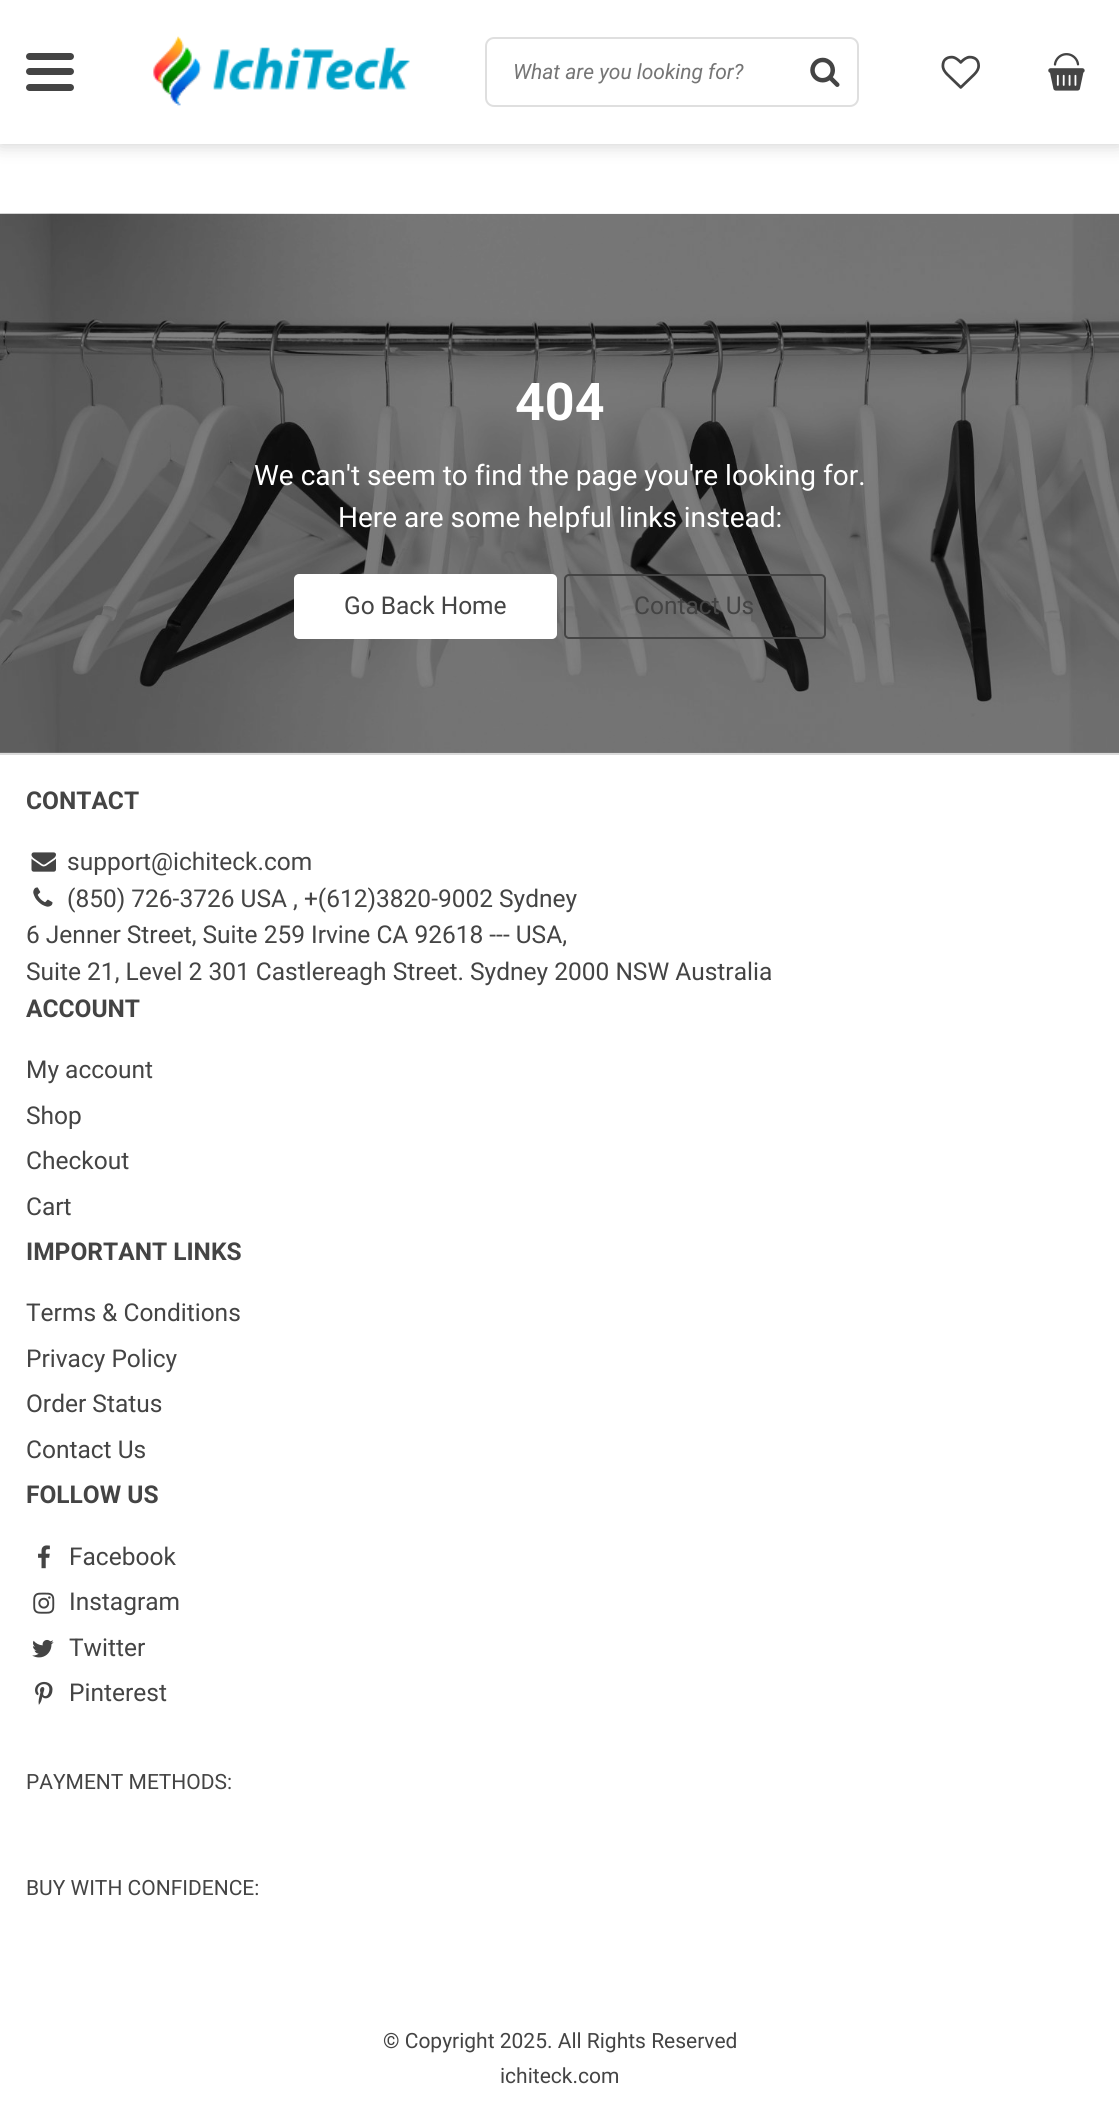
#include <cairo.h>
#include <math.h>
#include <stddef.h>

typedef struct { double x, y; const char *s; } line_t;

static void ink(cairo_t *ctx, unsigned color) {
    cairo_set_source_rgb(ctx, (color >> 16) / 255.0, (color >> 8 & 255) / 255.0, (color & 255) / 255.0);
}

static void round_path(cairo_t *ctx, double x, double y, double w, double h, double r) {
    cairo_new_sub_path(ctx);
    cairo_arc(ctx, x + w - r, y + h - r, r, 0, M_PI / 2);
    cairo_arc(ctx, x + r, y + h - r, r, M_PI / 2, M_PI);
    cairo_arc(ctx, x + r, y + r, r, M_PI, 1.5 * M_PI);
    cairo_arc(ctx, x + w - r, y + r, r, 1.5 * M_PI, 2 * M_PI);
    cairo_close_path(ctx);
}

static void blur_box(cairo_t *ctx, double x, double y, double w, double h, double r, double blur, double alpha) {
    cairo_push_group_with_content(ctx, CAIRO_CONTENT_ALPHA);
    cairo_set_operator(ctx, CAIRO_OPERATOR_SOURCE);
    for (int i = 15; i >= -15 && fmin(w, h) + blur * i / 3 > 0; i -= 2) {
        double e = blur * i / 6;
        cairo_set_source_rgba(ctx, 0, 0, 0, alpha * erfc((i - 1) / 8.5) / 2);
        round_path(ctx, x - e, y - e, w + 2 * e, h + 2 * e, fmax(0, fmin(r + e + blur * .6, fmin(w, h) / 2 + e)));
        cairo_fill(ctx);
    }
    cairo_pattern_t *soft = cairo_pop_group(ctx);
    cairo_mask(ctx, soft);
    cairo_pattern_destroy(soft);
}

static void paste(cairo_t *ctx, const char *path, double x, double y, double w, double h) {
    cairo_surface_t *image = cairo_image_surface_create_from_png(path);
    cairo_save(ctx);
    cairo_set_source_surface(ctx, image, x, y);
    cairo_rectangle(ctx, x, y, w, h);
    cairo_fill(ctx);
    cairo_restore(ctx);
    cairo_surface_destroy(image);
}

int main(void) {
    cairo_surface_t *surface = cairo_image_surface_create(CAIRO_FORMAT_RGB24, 1119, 2128);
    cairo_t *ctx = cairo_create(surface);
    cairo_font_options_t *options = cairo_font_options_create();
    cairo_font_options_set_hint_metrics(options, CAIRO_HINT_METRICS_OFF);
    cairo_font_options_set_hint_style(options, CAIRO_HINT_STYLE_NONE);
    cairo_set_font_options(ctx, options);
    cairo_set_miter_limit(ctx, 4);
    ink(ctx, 0xFFFFFF);
    cairo_paint(ctx);
    ink(ctx, 0x808080);
    cairo_rectangle(ctx, 0, 752, 1119, 1);
    cairo_fill(ctx);
    ink(ctx, 0xCCCCCC);
    blur_box(ctx, 0, 0, 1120, 144, 0, 9, 1);
    ink(ctx, 0xFFFFFF);
    cairo_rectangle(ctx, 0, 0, 1119, 144);
    cairo_fill(ctx);
    ink(ctx, 0x444444);
    round_path(ctx, 26, 53, 48, 7, 3.5);
    cairo_fill(ctx);
    round_path(ctx, 26, 68, 48, 7, 3.5);
    cairo_fill(ctx);
    round_path(ctx, 26, 84, 48, 7, 3.5);
    cairo_fill(ctx);
    paste(ctx, "media/1.png", 153, 36, 257, 70);
    round_path(ctx, 486, 38, 372, 68, 8);
    ink(ctx, 0xDFDFDF);
    cairo_stroke(ctx);
    cairo_select_font_face(ctx, "Roboto", CAIRO_FONT_SLANT_ITALIC, CAIRO_FONT_WEIGHT_NORMAL);
    cairo_set_font_size(ctx, 21);
    ink(ctx, 0x757575);
    cairo_move_to(ctx, 513, 79);
    cairo_show_text(ctx, "What are you looking for?");
    paste(ctx, "media/2.png", 810, 57, 30, 30);
    paste(ctx, "media/3.png", 941, 55, 39, 34);
    paste(ctx, "media/4.png", 1048, 53, 37, 38);
    paste(ctx, "media/5.png", 0, 213, 1119, 540);
    cairo_select_font_face(ctx, "Roboto", CAIRO_FONT_SLANT_NORMAL, CAIRO_FONT_WEIGHT_BOLD);
    cairo_set_font_size(ctx, 52);
    ink(ctx, 0xFFFFFF);
    cairo_move_to(ctx, 515, 420);
    cairo_show_text(ctx, "404");
    cairo_select_font_face(ctx, "Roboto", CAIRO_FONT_SLANT_NORMAL, CAIRO_FONT_WEIGHT_NORMAL);
    cairo_set_font_size(ctx, 28);
    cairo_move_to(ctx, 254, 485);
    cairo_show_text(ctx, "We can't seem to find the page you're looking for.");
    cairo_move_to(ctx, 338, 527);
    cairo_show_text(ctx, "Here are some helpful links instead:");
    round_path(ctx, 295, 575, 261, 63, 4);
    cairo_fill_preserve(ctx);
    cairo_stroke(ctx);
    cairo_set_font_size(ctx, 24.5);
    ink(ctx, 0x444444);
    cairo_move_to(ctx, 344, 614);
    cairo_show_text(ctx, "Go Back Home");
    round_path(ctx, 565, 575, 260, 63, 4);
    cairo_stroke(ctx);
    cairo_move_to(ctx, 634, 614);
    cairo_show_text(ctx, "Contact Us");
    ink(ctx, 0xDADADA);
    cairo_rectangle(ctx, 0, 753, 1119, 2);
    cairo_fill(ctx);
    cairo_select_font_face(ctx, "Roboto", CAIRO_FONT_SLANT_NORMAL, CAIRO_FONT_WEIGHT_BOLD);
    ink(ctx, 0x444444);
    cairo_move_to(ctx, 26, 809);
    cairo_show_text(ctx, "CONTACT");
    paste(ctx, "media/6.png", 31, 852, 25, 20);
    cairo_select_font_face(ctx, "Roboto", CAIRO_FONT_SLANT_NORMAL, CAIRO_FONT_WEIGHT_NORMAL);
    cairo_move_to(ctx, 67, 870);
    cairo_show_text(ctx, "support@ichiteck.com");
    paste(ctx, "media/7.png", 33, 887, 20, 20);
    {
        static const line_t items[] = {
            {67, 907, "(850) 726-3726 USA , +(612)3820-9002 Sydney"},
            {26, 943, "6 Jenner Street, Suite 259 Irvine CA 92618 --- USA,"},
            {26, 980, "Suite 21, Level 2 301 Castlereagh Street. Sydney 2000 NSW Australia"},
        };
        for (size_t i = 0; i < sizeof items / sizeof *items; i++) {
            cairo_move_to(ctx, items[i].x, items[i].y);
            cairo_show_text(ctx, items[i].s);
        }
    }
    cairo_select_font_face(ctx, "Roboto", CAIRO_FONT_SLANT_NORMAL, CAIRO_FONT_WEIGHT_BOLD);
    cairo_move_to(ctx, 26, 1017);
    cairo_show_text(ctx, "ACCOUNT");
    cairo_select_font_face(ctx, "Roboto", CAIRO_FONT_SLANT_NORMAL, CAIRO_FONT_WEIGHT_NORMAL);
    {
        static const line_t items[] = {
            {26, 1078, "My account"},
            {26, 1124, "Shop"},
            {26, 1169, "Checkout"},
            {26, 1215, "Cart"},
        };
        for (size_t i = 0; i < sizeof items / sizeof *items; i++) {
            cairo_move_to(ctx, items[i].x, items[i].y);
            cairo_show_text(ctx, items[i].s);
        }
    }
    cairo_select_font_face(ctx, "Roboto", CAIRO_FONT_SLANT_NORMAL, CAIRO_FONT_WEIGHT_BOLD);
    cairo_move_to(ctx, 26, 1260);
    cairo_show_text(ctx, "IMPORTANT LINKS");
    cairo_select_font_face(ctx, "Roboto", CAIRO_FONT_SLANT_NORMAL, CAIRO_FONT_WEIGHT_NORMAL);
    {
        static const line_t items[] = {
            {26, 1321, "Terms & Conditions"},
            {26, 1367, "Privacy Policy"},
            {26, 1412, "Order Status"},
            {26, 1458, "Contact Us"},
        };
        for (size_t i = 0; i < sizeof items / sizeof *items; i++) {
            cairo_move_to(ctx, items[i].x, items[i].y);
            cairo_show_text(ctx, items[i].s);
        }
    }
    cairo_select_font_face(ctx, "Roboto", CAIRO_FONT_SLANT_NORMAL, CAIRO_FONT_WEIGHT_BOLD);
    cairo_move_to(ctx, 26, 1503);
    cairo_show_text(ctx, "FOLLOW US");
    paste(ctx, "media/8.png", 38, 1545, 12, 24);
    cairo_select_font_face(ctx, "Roboto", CAIRO_FONT_SLANT_NORMAL, CAIRO_FONT_WEIGHT_NORMAL);
    cairo_move_to(ctx, 69, 1565);
    cairo_show_text(ctx, "Facebook");
    paste(ctx, "media/9.png", 33, 1592, 22, 22);
    cairo_move_to(ctx, 69, 1610);
    cairo_show_text(ctx, "Instagram");
    paste(ctx, "media/10.png", 32, 1639, 22, 19);
    cairo_move_to(ctx, 69, 1656);
    cairo_show_text(ctx, "Twitter");
    paste(ctx, "media/11.png", 35, 1681, 18, 24);
    cairo_move_to(ctx, 69, 1701);
    cairo_show_text(ctx, "Pinterest");
    cairo_set_font_size(ctx, 21);
    {
        static const line_t items[] = {
            {26, 1789, "PAYMENT METHODS:"},
            {26, 1895, "BUY WITH CONFIDENCE:"},
            {383, 2048, "© Copyright 2025. All Rights Reserved"},
            {500, 2083, "ichiteck.com"},
        };
        for (size_t i = 0; i < sizeof items / sizeof *items; i++) {
            cairo_move_to(ctx, items[i].x, items[i].y);
            cairo_show_text(ctx, items[i].s);
        }
    }
    cairo_surface_write_to_png(surface, "image.png");
    cairo_font_options_destroy(options);
    cairo_destroy(ctx);
    cairo_surface_destroy(surface);
    return 0;
}
